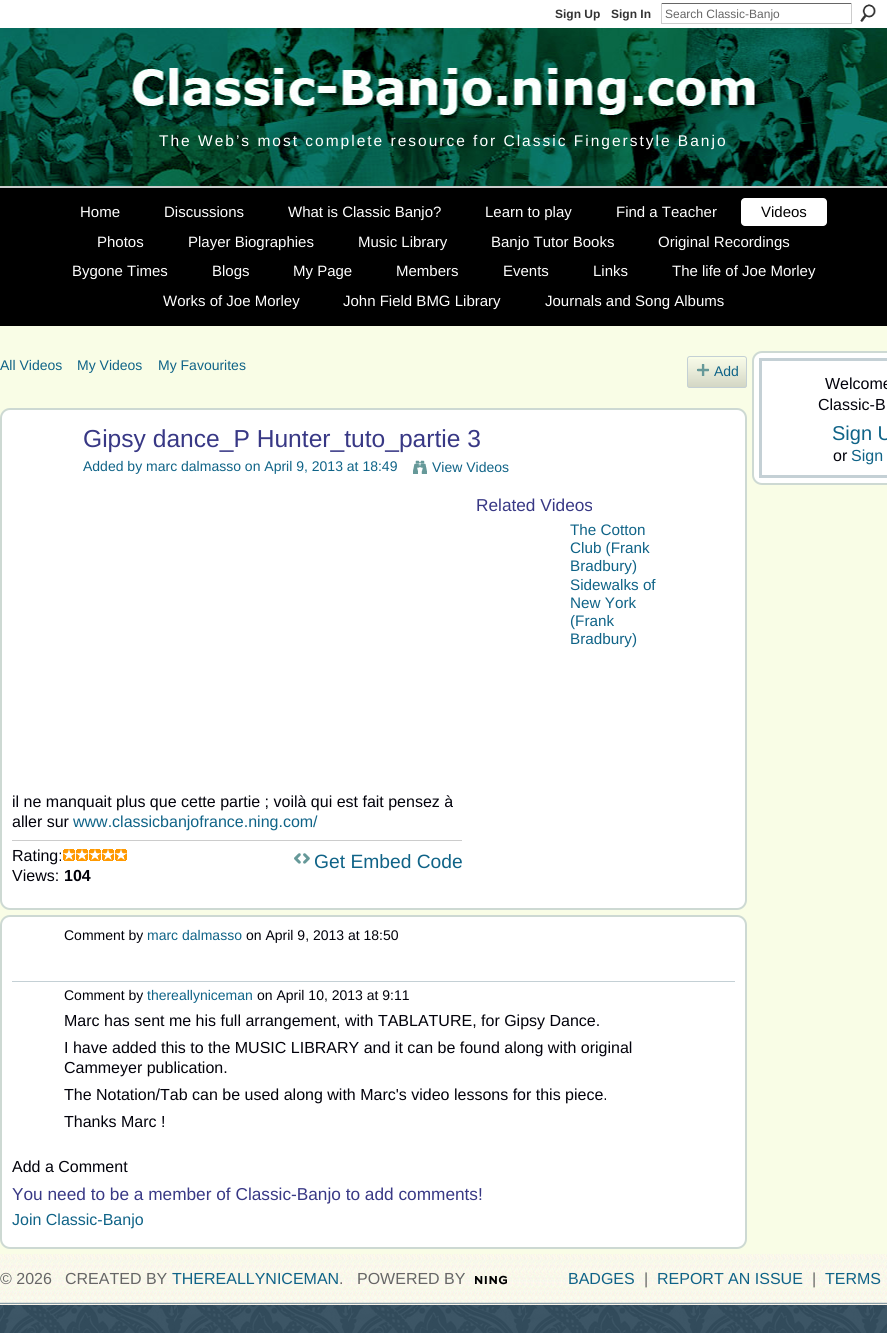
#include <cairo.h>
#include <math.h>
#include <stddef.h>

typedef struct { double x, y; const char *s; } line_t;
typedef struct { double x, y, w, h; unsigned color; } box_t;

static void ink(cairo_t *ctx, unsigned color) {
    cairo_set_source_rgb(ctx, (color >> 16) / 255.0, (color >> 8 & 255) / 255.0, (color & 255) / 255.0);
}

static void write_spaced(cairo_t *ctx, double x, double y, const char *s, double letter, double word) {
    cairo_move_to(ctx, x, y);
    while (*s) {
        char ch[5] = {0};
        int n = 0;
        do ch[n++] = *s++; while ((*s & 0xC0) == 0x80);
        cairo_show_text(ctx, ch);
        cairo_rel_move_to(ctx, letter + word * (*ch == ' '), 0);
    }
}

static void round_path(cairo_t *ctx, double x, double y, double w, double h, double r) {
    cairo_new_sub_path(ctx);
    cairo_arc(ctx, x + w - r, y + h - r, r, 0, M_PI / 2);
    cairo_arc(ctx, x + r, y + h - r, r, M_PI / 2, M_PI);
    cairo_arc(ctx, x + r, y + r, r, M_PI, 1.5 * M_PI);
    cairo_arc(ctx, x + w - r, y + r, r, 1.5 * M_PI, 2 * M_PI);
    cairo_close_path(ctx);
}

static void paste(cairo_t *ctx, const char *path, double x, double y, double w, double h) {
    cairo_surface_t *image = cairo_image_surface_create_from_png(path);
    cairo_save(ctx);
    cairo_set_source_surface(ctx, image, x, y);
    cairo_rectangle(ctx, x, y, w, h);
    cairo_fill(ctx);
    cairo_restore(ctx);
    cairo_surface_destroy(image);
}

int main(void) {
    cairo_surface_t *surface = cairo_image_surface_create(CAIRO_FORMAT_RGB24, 887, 1333);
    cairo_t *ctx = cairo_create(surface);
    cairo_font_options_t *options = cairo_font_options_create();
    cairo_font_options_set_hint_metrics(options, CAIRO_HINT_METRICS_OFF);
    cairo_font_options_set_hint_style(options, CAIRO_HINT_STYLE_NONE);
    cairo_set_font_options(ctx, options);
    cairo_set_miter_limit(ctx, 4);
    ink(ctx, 0x3A586B);
    cairo_paint(ctx);
    paste(ctx, "media/1.png", 0, 1305, 887, 28);
    ink(ctx, 0xFFFFFF);
    cairo_rectangle(ctx, 0, 0, 887, 28);
    cairo_fill(ctx);
    cairo_select_font_face(ctx, "Liberation Sans", CAIRO_FONT_SLANT_NORMAL, CAIRO_FONT_WEIGHT_BOLD);
    cairo_set_font_size(ctx, 12);
    ink(ctx, 0x333333);
    cairo_move_to(ctx, 555, 18);
    cairo_show_text(ctx, "Sign Up");
    cairo_move_to(ctx, 611, 18);
    cairo_show_text(ctx, "Sign In");
    {
        static const box_t items[] = {
            {661, 3, 191, 1, 0x666666},
            {851, 3, 1, 21, 0xCCCCCC},
            {661, 23, 191, 1, 0xCCCCCC},
            {661, 3, 1, 21, 0xCCCCCC},
        };
        for (size_t i = 0; i < sizeof items / sizeof *items; i++) {
            ink(ctx, items[i].color);
            cairo_rectangle(ctx, items[i].x, items[i].y, items[i].w, items[i].h);
            cairo_fill(ctx);
        }
    }
    cairo_select_font_face(ctx, "Liberation Sans", CAIRO_FONT_SLANT_NORMAL, CAIRO_FONT_WEIGHT_NORMAL);
    ink(ctx, 0x666666);
    cairo_move_to(ctx, 665, 18);
    cairo_show_text(ctx, "Search Classic-Banjo");
    paste(ctx, "media/2.png", 860, 4, 16, 18);
    paste(ctx, "media/3.png", 0, 28, 887, 158);
    cairo_set_font_size(ctx, 15.5);
    ink(ctx, 0xFFFFFF);
    write_spaced(ctx, 159, 146, "The Web’s most complete resource for Classic Fingerstyle Banjo", 2, 0);
    ink(ctx, 0x000000);
    cairo_rectangle(ctx, 0, 188, 887, 138);
    cairo_fill(ctx);
    ink(ctx, 0xCCCCCC);
    cairo_rectangle(ctx, 0, 186, 887, 2);
    cairo_fill(ctx);
    cairo_set_font_size(ctx, 15);
    ink(ctx, 0xFFFFFF);
    {
        static const line_t items[] = {
            {80, 217, "Home"},
            {164, 217, "Discussions"},
            {288, 217, "What is Classic Banjo?"},
            {485, 217, "Learn to play"},
            {616, 217, "Find a Teacher"},
        };
        for (size_t i = 0; i < sizeof items / sizeof *items; i++) {
            cairo_move_to(ctx, items[i].x, items[i].y);
            cairo_show_text(ctx, items[i].s);
        }
    }
    round_path(ctx, 741, 198, 86, 28, 4);
    cairo_fill(ctx);
    ink(ctx, 0x000000);
    cairo_move_to(ctx, 761, 217);
    cairo_show_text(ctx, "Videos");
    ink(ctx, 0xFFFFFF);
    {
        static const line_t items[] = {
            {97, 247, "Photos"},
            {188, 247, "Player Biographies"},
            {358, 247, "Music Library"},
            {491, 247, "Banjo Tutor Books"},
            {658, 247, "Original Recordings"},
            {72, 276, "Bygone Times"},
            {212, 276, "Blogs"},
            {293, 276, "My Page"},
            {396, 276, "Members"},
            {503, 276, "Events"},
            {593, 276, "Links"},
            {672, 276, "The life of Joe Morley"},
            {163, 306, "Works of Joe Morley"},
            {343, 306, "John Field BMG Library"},
            {545, 306, "Journals and Song Albums"},
        };
        for (size_t i = 0; i < sizeof items / sizeof *items; i++) {
            cairo_move_to(ctx, items[i].x, items[i].y);
            cairo_show_text(ctx, items[i].s);
        }
    }
    ink(ctx, 0xF9FDE6);
    cairo_rectangle(ctx, 0, 326, 887, 928);
    cairo_fill(ctx);
    cairo_set_font_size(ctx, 14);
    ink(ctx, 0x0F6387);
    {
        static const line_t items[] = {
            {0, 370, "All Videos"},
            {77, 370, "My Videos"},
            {158, 370, "My Favourites"},
        };
        for (size_t i = 0; i < sizeof items / sizeof *items; i++) {
            cairo_move_to(ctx, items[i].x, items[i].y);
            cairo_show_text(ctx, items[i].s);
        }
    }
    paste(ctx, "media/4.png", 687, 359, 60, 29);
    round_path(ctx, 687.5, 356.5, 59, 31, 2.5);
    ink(ctx, 0xC4D0D5);
    cairo_set_line_width(ctx, 1);
    cairo_stroke(ctx);
    paste(ctx, "media/5.png", 697, 364, 12, 12);
    ink(ctx, 0x0F6387);
    cairo_move_to(ctx, 714, 376);
    cairo_show_text(ctx, "Add");
    ink(ctx, 0xFFFFFF);
    round_path(ctx, 1, 409, 745, 500, 9);
    cairo_fill_preserve(ctx);
    ink(ctx, 0xCDD9D3);
    cairo_set_line_width(ctx, 2);
    cairo_stroke(ctx);
    cairo_set_font_size(ctx, 24.6);
    ink(ctx, 0x383885);
    cairo_move_to(ctx, 83, 447);
    cairo_show_text(ctx, "Gipsy dance_P Hunter_tuto_partie 3");
    cairo_set_font_size(ctx, 14);
    ink(ctx, 0x0F6387);
    cairo_move_to(ctx, 83, 471);
    cairo_show_text(ctx, "Added by marc dalmasso on April 9, 2013 at 18:49");
    paste(ctx, "media/6.png", 413, 460, 14, 14);
    cairo_move_to(ctx, 432, 472);
    cairo_show_text(ctx, "View Videos");
    cairo_set_font_size(ctx, 17.25);
    ink(ctx, 0x383885);
    cairo_move_to(ctx, 476, 511);
    cairo_show_text(ctx, "Related Videos");
    cairo_set_font_size(ctx, 15.25);
    ink(ctx, 0x0F6387);
    {
        static const line_t items[] = {
            {570, 535, "The Cotton"},
            {570, 553, "Club (Frank"},
            {570, 571, "Bradbury)"},
            {570, 590, "Sidewalks of"},
            {570, 608, "New York"},
            {570, 626, "(Frank"},
            {570, 644, "Bradbury)"},
        };
        for (size_t i = 0; i < sizeof items / sizeof *items; i++) {
            cairo_move_to(ctx, items[i].x, items[i].y);
            cairo_show_text(ctx, items[i].s);
        }
    }
    ink(ctx, 0xCCCCCC);
    cairo_rectangle(ctx, 12, 840, 450, 1);
    cairo_fill(ctx);
    cairo_set_font_size(ctx, 16);
    ink(ctx, 0x01010A);
    cairo_move_to(ctx, 12, 807);
    cairo_show_text(ctx, "il ne manquait plus que cette partie ; voilà qui est fait pensez à");
    cairo_move_to(ctx, 12, 827);
    cairo_show_text(ctx, "aller sur");
    ink(ctx, 0x0F6387);
    cairo_move_to(ctx, 73, 827);
    cairo_show_text(ctx, "www.classicbanjofrance.ning.com/");
    ink(ctx, 0x01010A);
    cairo_move_to(ctx, 12, 861);
    cairo_show_text(ctx, "Rating:");
    paste(ctx, "media/7.png", 63, 849, 64, 12);
    cairo_move_to(ctx, 12, 881);
    cairo_show_text(ctx, "Views:");
    cairo_select_font_face(ctx, "Liberation Sans", CAIRO_FONT_SLANT_NORMAL, CAIRO_FONT_WEIGHT_BOLD);
    cairo_move_to(ctx, 64, 881);
    cairo_show_text(ctx, "104");
    paste(ctx, "media/8.png", 294, 853, 16, 11);
    cairo_select_font_face(ctx, "Liberation Sans", CAIRO_FONT_SLANT_NORMAL, CAIRO_FONT_WEIGHT_NORMAL);
    cairo_set_font_size(ctx, 19.25);
    ink(ctx, 0x0F6387);
    cairo_move_to(ctx, 314, 868);
    cairo_show_text(ctx, "Get Embed Code");
    ink(ctx, 0xFFFFFF);
    round_path(ctx, 1, 916, 745, 332, 9);
    cairo_fill_preserve(ctx);
    ink(ctx, 0xCDD9D3);
    cairo_stroke(ctx);
    ink(ctx, 0xC4D0D5);
    cairo_rectangle(ctx, 12, 981, 723, 1);
    cairo_fill(ctx);
    cairo_set_font_size(ctx, 14);
    ink(ctx, 0x01010A);
    cairo_move_to(ctx, 64, 940);
    cairo_show_text(ctx, "Comment by");
    ink(ctx, 0x0F6387);
    cairo_move_to(ctx, 147, 940);
    cairo_show_text(ctx, "marc dalmasso");
    ink(ctx, 0x01010A);
    cairo_move_to(ctx, 246, 940);
    cairo_show_text(ctx, "on April 9, 2013 at 18:50");
    cairo_move_to(ctx, 64, 1000);
    cairo_show_text(ctx, "Comment by");
    ink(ctx, 0x0F6387);
    cairo_move_to(ctx, 147, 1000);
    cairo_show_text(ctx, "thereallyniceman");
    ink(ctx, 0x01010A);
    cairo_move_to(ctx, 257, 1000);
    cairo_show_text(ctx, "on April 10, 2013 at 9:11");
    cairo_set_font_size(ctx, 16);
    {
        static const line_t items[] = {
            {64, 1026, "Marc has sent me his full arrangement, with TABLATURE, for Gipsy Dance."},
            {64, 1053, "I have added this to the MUSIC LIBRARY and it can be found along with original"},
            {64, 1073, "Cammeyer publication."},
            {64, 1100, "The Notation/Tab can be used along with Marc's video lessons for this piece."},
            {64, 1127, "Thanks Marc !"},
            {12, 1172, "Add a Comment"},
        };
        for (size_t i = 0; i < sizeof items / sizeof *items; i++) {
            cairo_move_to(ctx, items[i].x, items[i].y);
            cairo_show_text(ctx, items[i].s);
        }
    }
    cairo_set_font_size(ctx, 17.25);
    ink(ctx, 0x383885);
    cairo_move_to(ctx, 12, 1200);
    cairo_show_text(ctx, "You need to be a member of Classic-Banjo to add comments!");
    cairo_set_font_size(ctx, 16);
    ink(ctx, 0x0F6387);
    cairo_move_to(ctx, 12, 1225);
    cairo_show_text(ctx, "Join Classic-Banjo");
    ink(ctx, 0xFFFFFF);
    round_path(ctx, 753, 352, 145, 132, 9);
    cairo_fill_preserve(ctx);
    ink(ctx, 0xCDD9D3);
    cairo_stroke(ctx);
    cairo_rectangle(ctx, 760.5, 359.5, 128, 117);
    ink(ctx, 0xC4D0D5);
    cairo_set_line_width(ctx, 3);
    cairo_stroke(ctx);
    ink(ctx, 0x01010A);
    cairo_move_to(ctx, 825, 389);
    cairo_show_text(ctx, "Welcome");
    cairo_move_to(ctx, 818, 410);
    cairo_show_text(ctx, "Classic-B");
    cairo_set_font_size(ctx, 20);
    ink(ctx, 0x0F6387);
    cairo_move_to(ctx, 832, 440);
    cairo_show_text(ctx, "Sign U");
    cairo_set_font_size(ctx, 16);
    ink(ctx, 0x01010A);
    cairo_move_to(ctx, 833, 461);
    cairo_show_text(ctx, "or");
    ink(ctx, 0x0F6387);
    cairo_move_to(ctx, 851, 461);
    cairo_show_text(ctx, "Sign");
    paste(ctx, "media/9.png", 0, 1254, 887, 51);
    ink(ctx, 0x666666);
    cairo_move_to(ctx, 0, 1284);
    cairo_show_text(ctx, "© 2026");
    cairo_move_to(ctx, 65, 1284);
    cairo_show_text(ctx, "CREATED BY");
    ink(ctx, 0x0F6387);
    cairo_move_to(ctx, 172, 1284);
    cairo_show_text(ctx, "THEREALLYNICEMAN");
    ink(ctx, 0x666666);
    cairo_move_to(ctx, 339, 1284);
    cairo_show_text(ctx, ".");
    cairo_move_to(ctx, 357, 1284);
    cairo_show_text(ctx, "POWERED BY");
    paste(ctx, "media/10.png", 475, 1275, 32, 10);
    ink(ctx, 0x0F6387);
    cairo_move_to(ctx, 568, 1284);
    cairo_show_text(ctx, "BADGES");
    ink(ctx, 0x666666);
    cairo_move_to(ctx, 644, 1284);
    cairo_show_text(ctx, "|");
    ink(ctx, 0x0F6387);
    cairo_move_to(ctx, 657, 1284);
    cairo_show_text(ctx, "REPORT AN ISSUE");
    ink(ctx, 0x666666);
    cairo_move_to(ctx, 812, 1284);
    cairo_show_text(ctx, "|");
    ink(ctx, 0x0F6387);
    cairo_move_to(ctx, 825, 1284);
    cairo_show_text(ctx, "TERMS");
    cairo_surface_write_to_png(surface, "image.png");
    cairo_font_options_destroy(options);
    cairo_destroy(ctx);
    cairo_surface_destroy(surface);
    return 0;
}
